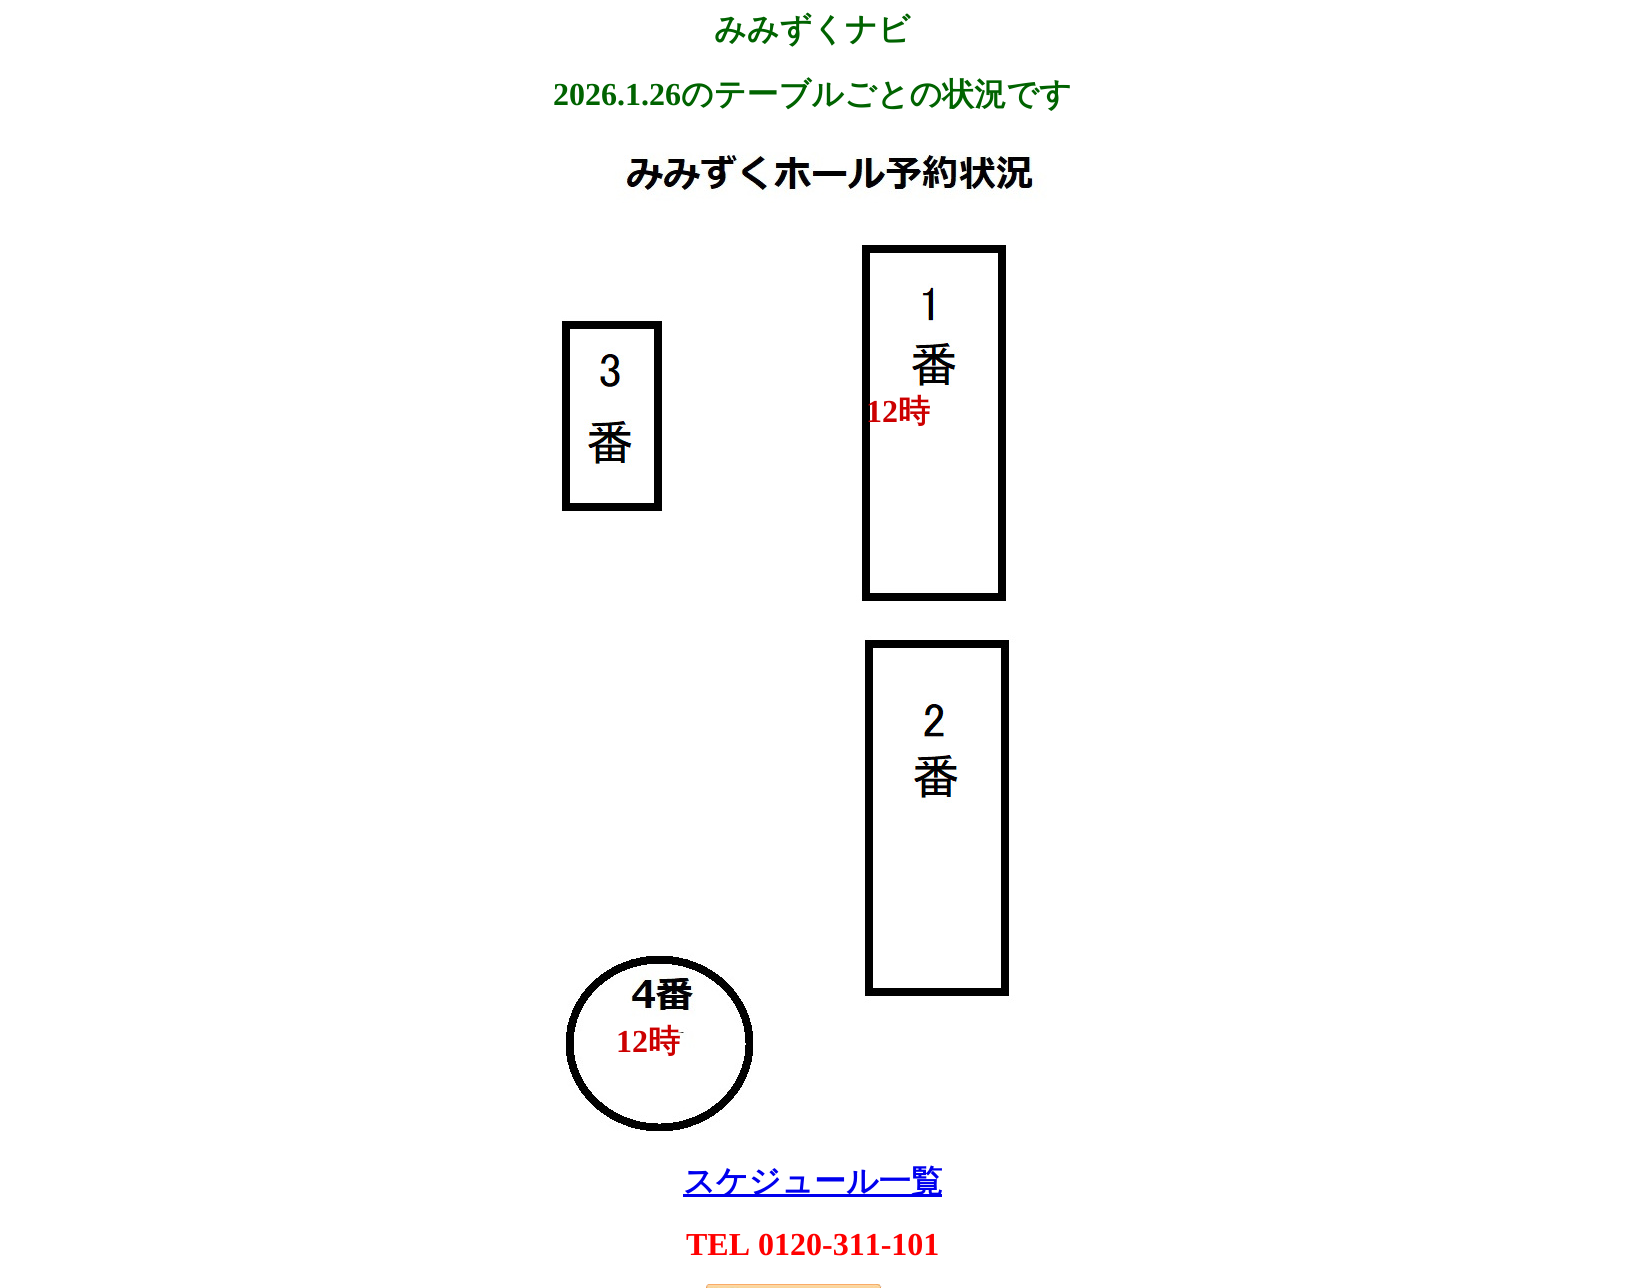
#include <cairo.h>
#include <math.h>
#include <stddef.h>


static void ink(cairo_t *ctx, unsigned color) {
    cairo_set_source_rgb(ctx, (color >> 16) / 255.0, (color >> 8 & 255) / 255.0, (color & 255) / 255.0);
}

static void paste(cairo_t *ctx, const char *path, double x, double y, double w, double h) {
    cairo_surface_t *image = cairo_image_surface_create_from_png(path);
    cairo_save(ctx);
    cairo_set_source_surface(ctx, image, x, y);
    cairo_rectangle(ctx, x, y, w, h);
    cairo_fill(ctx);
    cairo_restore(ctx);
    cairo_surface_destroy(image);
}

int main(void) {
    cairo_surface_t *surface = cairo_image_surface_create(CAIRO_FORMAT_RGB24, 1625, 1288);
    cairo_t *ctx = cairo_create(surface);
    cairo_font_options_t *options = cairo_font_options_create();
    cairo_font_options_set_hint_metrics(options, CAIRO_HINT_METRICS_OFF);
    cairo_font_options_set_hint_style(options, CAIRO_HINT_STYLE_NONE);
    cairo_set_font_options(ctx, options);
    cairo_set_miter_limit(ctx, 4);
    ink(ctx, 0xFFFFFF);
    cairo_paint(ctx);
    cairo_select_font_face(ctx, "WenQuanYi Zen Hei", CAIRO_FONT_SLANT_NORMAL, CAIRO_FONT_WEIGHT_BOLD);
    cairo_set_font_size(ctx, 32);
    ink(ctx, 0x006300);
    cairo_move_to(ctx, 714, 40);
    cairo_show_text(ctx, "みみずくナビ");
    cairo_select_font_face(ctx, "Liberation Serif", CAIRO_FONT_SLANT_NORMAL, CAIRO_FONT_WEIGHT_BOLD);
    cairo_move_to(ctx, 553, 105);
    cairo_show_text(ctx, "2026.1.26");
    cairo_select_font_face(ctx, "WenQuanYi Zen Hei", CAIRO_FONT_SLANT_NORMAL, CAIRO_FONT_WEIGHT_BOLD);
    cairo_move_to(ctx, 681, 105);
    cairo_show_text(ctx, "のテーブルごとの状況です");
    paste(ctx, "media/1.png", 561, 152, 486, 979);
    cairo_select_font_face(ctx, "Liberation Serif", CAIRO_FONT_SLANT_NORMAL, CAIRO_FONT_WEIGHT_BOLD);
    ink(ctx, 0xCC0000);
    cairo_move_to(ctx, 866, 422);
    cairo_show_text(ctx, "12");
    cairo_select_font_face(ctx, "WenQuanYi Zen Hei", CAIRO_FONT_SLANT_NORMAL, CAIRO_FONT_WEIGHT_BOLD);
    cairo_move_to(ctx, 898, 422);
    cairo_show_text(ctx, "時");
    cairo_select_font_face(ctx, "Liberation Serif", CAIRO_FONT_SLANT_NORMAL, CAIRO_FONT_WEIGHT_BOLD);
    cairo_move_to(ctx, 616, 1052);
    cairo_show_text(ctx, "12");
    cairo_select_font_face(ctx, "WenQuanYi Zen Hei", CAIRO_FONT_SLANT_NORMAL, CAIRO_FONT_WEIGHT_BOLD);
    cairo_move_to(ctx, 648, 1052);
    cairo_show_text(ctx, "時");
    ink(ctx, 0x0000EE);
    cairo_rectangle(ctx, 683, 1194, 259, 3);
    cairo_fill(ctx);
    cairo_move_to(ctx, 683, 1192);
    cairo_show_text(ctx, "スケジュール一覧");
    cairo_select_font_face(ctx, "Liberation Serif", CAIRO_FONT_SLANT_NORMAL, CAIRO_FONT_WEIGHT_BOLD);
    ink(ctx, 0xFF0000);
    cairo_move_to(ctx, 686, 1255);
    cairo_show_text(ctx, "TEL 0120-311-101");
    paste(ctx, "media/2.png", 706, 1284, 176, 4);
    cairo_surface_write_to_png(surface, "image.png");
    cairo_font_options_destroy(options);
    cairo_destroy(ctx);
    cairo_surface_destroy(surface);
    return 0;
}
